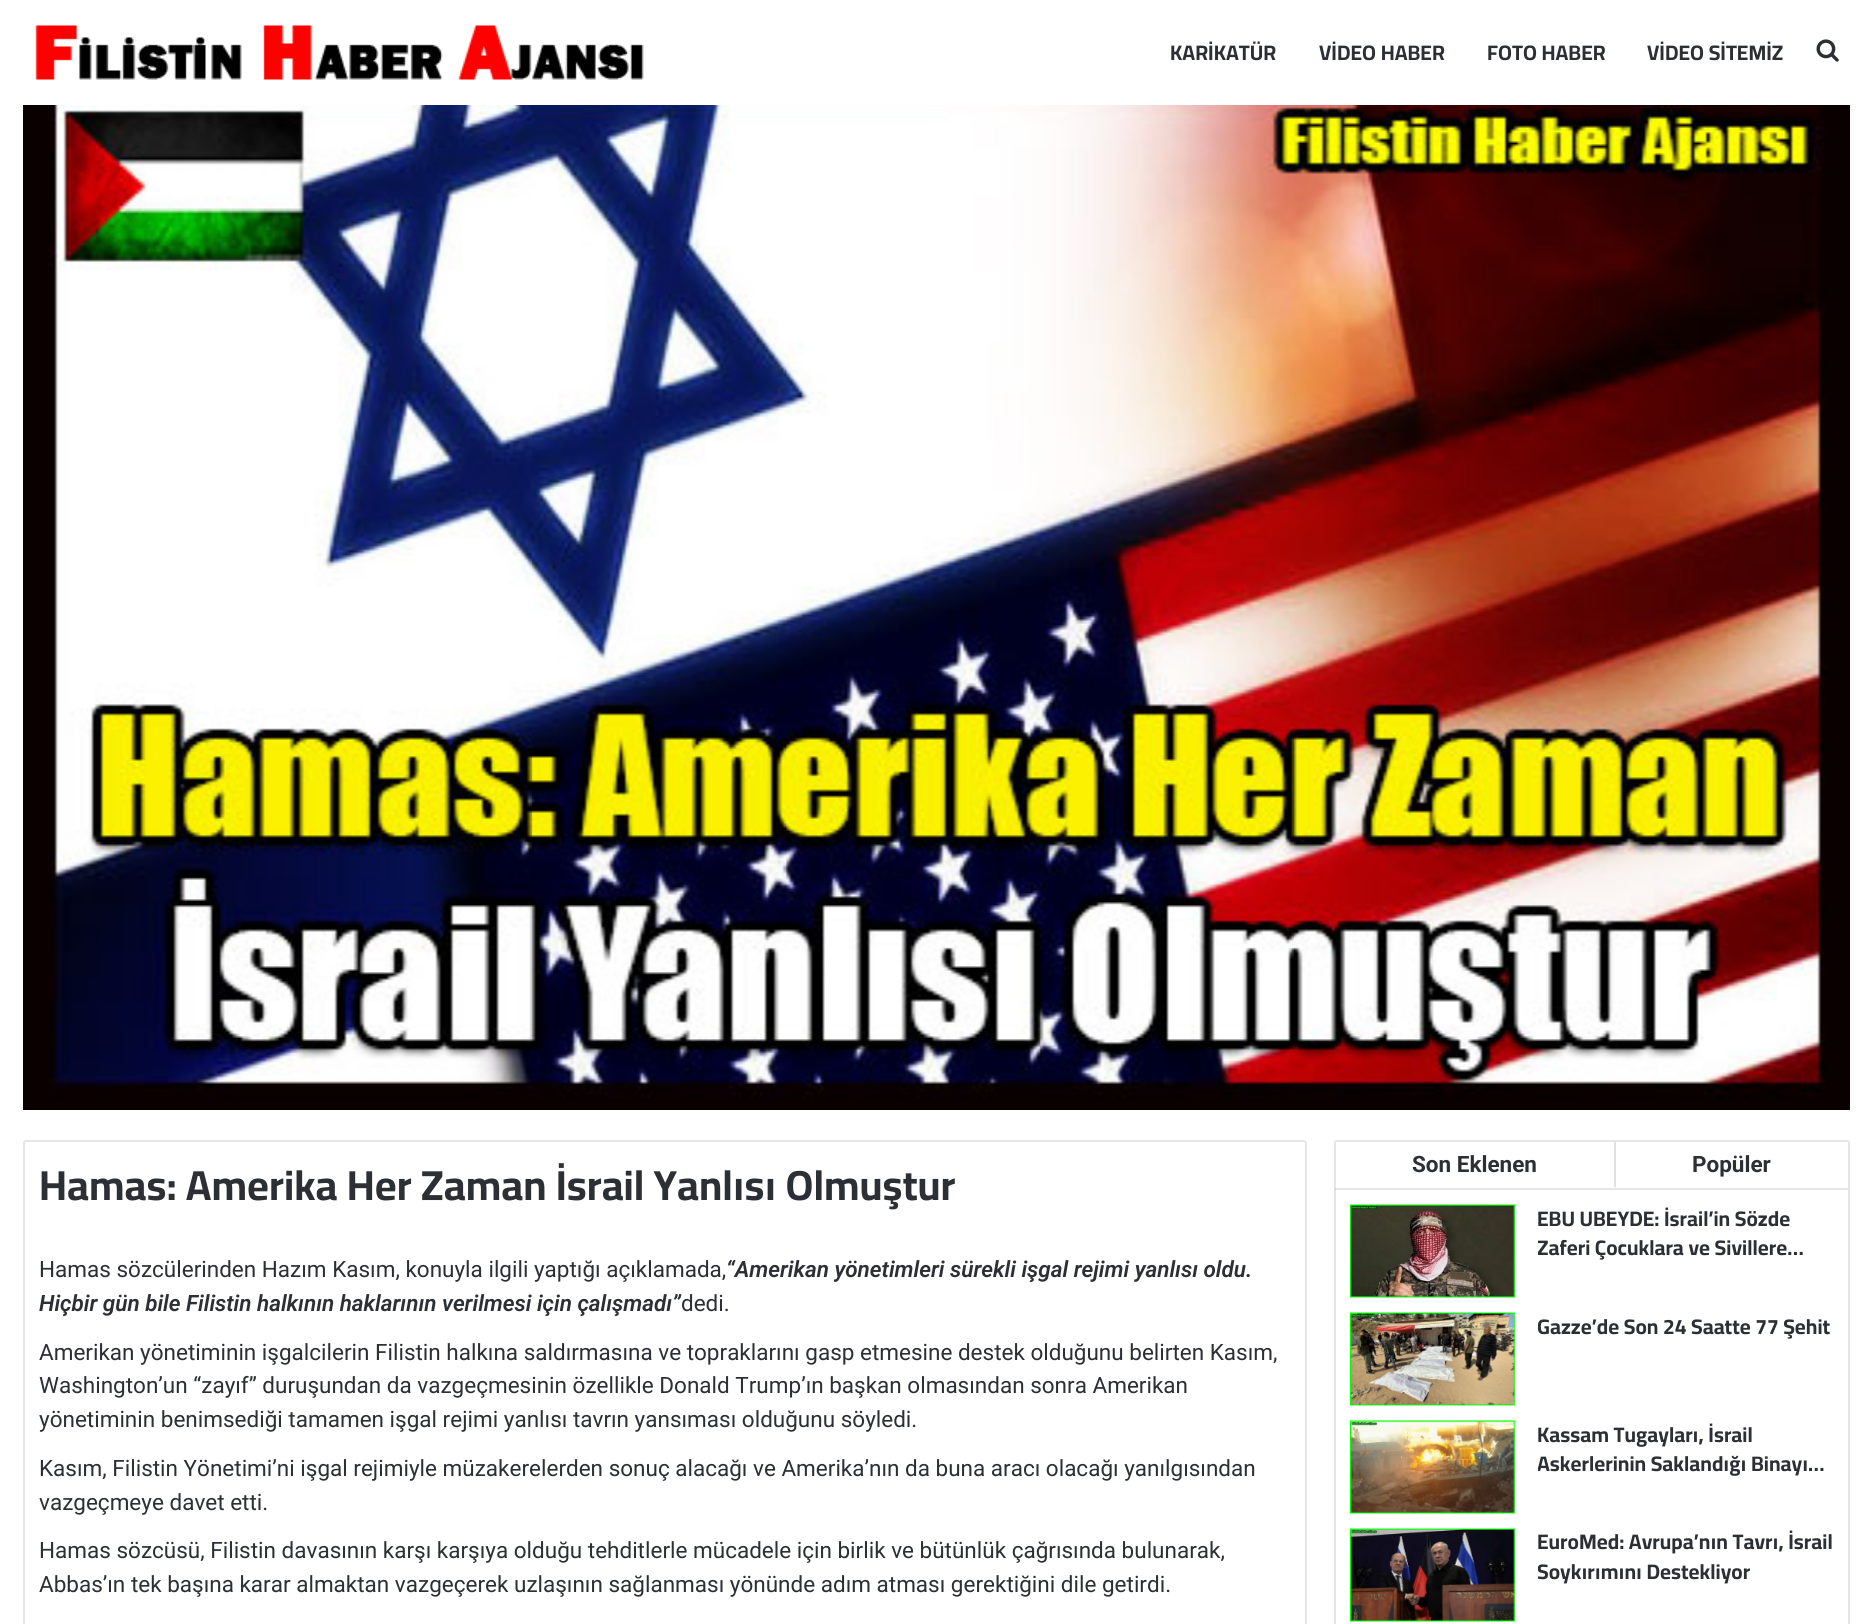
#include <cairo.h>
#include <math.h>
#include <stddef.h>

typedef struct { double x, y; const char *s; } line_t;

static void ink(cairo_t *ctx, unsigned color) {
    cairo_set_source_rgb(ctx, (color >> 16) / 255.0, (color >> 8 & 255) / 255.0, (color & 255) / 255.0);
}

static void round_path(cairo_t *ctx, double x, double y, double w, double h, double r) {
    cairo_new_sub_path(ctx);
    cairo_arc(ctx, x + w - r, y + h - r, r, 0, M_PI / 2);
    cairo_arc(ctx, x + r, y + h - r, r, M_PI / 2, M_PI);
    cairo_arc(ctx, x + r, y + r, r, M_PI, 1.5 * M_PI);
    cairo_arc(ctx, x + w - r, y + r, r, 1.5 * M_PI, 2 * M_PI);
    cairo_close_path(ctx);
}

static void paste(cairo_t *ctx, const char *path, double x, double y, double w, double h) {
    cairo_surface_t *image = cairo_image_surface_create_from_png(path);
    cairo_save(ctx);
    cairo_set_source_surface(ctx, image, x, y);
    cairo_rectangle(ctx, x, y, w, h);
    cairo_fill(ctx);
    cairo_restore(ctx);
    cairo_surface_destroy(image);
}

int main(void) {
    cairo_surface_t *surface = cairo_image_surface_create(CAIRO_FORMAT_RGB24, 1872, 1624);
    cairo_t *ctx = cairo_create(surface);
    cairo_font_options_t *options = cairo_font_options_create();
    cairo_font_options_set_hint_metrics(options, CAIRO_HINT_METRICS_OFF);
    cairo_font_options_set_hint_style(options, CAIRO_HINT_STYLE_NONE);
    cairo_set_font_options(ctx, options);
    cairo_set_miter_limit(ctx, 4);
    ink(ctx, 0xFFFFFF);
    cairo_paint(ctx);
    paste(ctx, "media/1.png", 35, 25, 609, 55);
    cairo_select_font_face(ctx, "Cairo", CAIRO_FONT_SLANT_NORMAL, CAIRO_FONT_WEIGHT_BOLD);
    cairo_set_font_size(ctx, 21);
    ink(ctx, 0x2C2F34);
    {
        static const line_t items[] = {
            {1170, 60, "KARİKATÜR"},
            {1319, 60, "VİDEO HABER"},
            {1487, 60, "FOTO HABER"},
            {1647, 60, "VİDEO SİTEMİZ"},
        };
        for (size_t i = 0; i < sizeof items / sizeof *items; i++) {
            cairo_move_to(ctx, items[i].x, items[i].y);
            cairo_show_text(ctx, items[i].s);
        }
    }
    paste(ctx, "media/2.png", 1816, 39, 23, 23);
    paste(ctx, "media/3.png", 23, 105, 1827, 1005);
    round_path(ctx, 24, 1141, 1282, 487, 2);
    ink(ctx, 0xE6E6E6);
    cairo_stroke(ctx);
    cairo_set_font_size(ctx, 42);
    ink(ctx, 0x2C2F34);
    cairo_move_to(ctx, 39, 1200);
    cairo_show_text(ctx, "Hamas: Amerika Her Zaman İsrail Yanlısı Olmuştur");
    cairo_select_font_face(ctx, "Roboto", CAIRO_FONT_SLANT_NORMAL, CAIRO_FONT_WEIGHT_NORMAL);
    cairo_set_font_size(ctx, 22.5);
    cairo_move_to(ctx, 39, 1277);
    cairo_show_text(ctx, "Hamas sözcülerinden Hazım Kasım, konuyla ilgili yaptığı açıklamada,");
    cairo_select_font_face(ctx, "Roboto SemiBold", CAIRO_FONT_SLANT_ITALIC, CAIRO_FONT_WEIGHT_NORMAL);
    cairo_move_to(ctx, 726, 1277);
    cairo_show_text(ctx, "“Amerikan yönetimleri sürekli işgal rejimi yanlısı oldu.");
    cairo_move_to(ctx, 39, 1311);
    cairo_show_text(ctx, "Hiçbir gün bile Filistin halkının haklarının verilmesi için çalışmadı”");
    cairo_select_font_face(ctx, "Roboto", CAIRO_FONT_SLANT_NORMAL, CAIRO_FONT_WEIGHT_NORMAL);
    {
        static const line_t items[] = {
            {681, 1311, "dedi."},
            {39, 1360, "Amerikan yönetiminin işgalcilerin Filistin halkına saldırmasına ve topraklarını gasp etmesine destek olduğunu belirten Kasım,"},
            {39, 1393, "Washington’un “zayıf” duruşundan da vazgeçmesinin özellikle Donald Trump’ın başkan olmasından sonra Amerikan"},
            {39, 1427, "yönetiminin benimsediği tamamen işgal rejimi yanlısı tavrın yansıması olduğunu söyledi."},
            {39, 1476, "Kasım, Filistin Yönetimi’ni işgal rejimiyle müzakerelerden sonuç alacağı ve Amerika’nın da buna aracı olacağı yanılgısından"},
            {39, 1510, "vazgeçmeye davet etti."},
            {39, 1558, "Hamas sözcüsü, Filistin davasının karşı karşıya olduğu tehditlerle mücadele için birlik ve bütünlük çağrısında bulunarak,"},
            {39, 1592, "Abbas’ın tek başına karar almaktan vazgeçerek uzlaşının sağlanması yönünde adım atması gerektiğini dile getirdi."},
        };
        for (size_t i = 0; i < sizeof items / sizeof *items; i++) {
            cairo_move_to(ctx, items[i].x, items[i].y);
            cairo_show_text(ctx, items[i].s);
        }
    }
    round_path(ctx, 1335, 1141, 514, 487, 2);
    ink(ctx, 0xE6E6E6);
    cairo_stroke(ctx);
    cairo_set_source_rgba(ctx, 0, 0, 0, 0.1);
    cairo_rectangle(ctx, 1335, 1188, 513, 2);
    cairo_fill(ctx);
    ink(ctx, 0xE1E1E1);
    cairo_new_path(ctx);
    cairo_move_to(ctx, 1616, 1142);
    cairo_line_to(ctx, 1616, 1188);
    cairo_line_to(ctx, 1614, 1186);
    cairo_line_to(ctx, 1614, 1142);
    cairo_close_path(ctx);
    cairo_fill(ctx);
    cairo_select_font_face(ctx, "Roboto", CAIRO_FONT_SLANT_NORMAL, CAIRO_FONT_WEIGHT_BOLD);
    ink(ctx, 0x2C2F34);
    cairo_move_to(ctx, 1412, 1172);
    cairo_show_text(ctx, "Son Eklenen");
    cairo_move_to(ctx, 1692, 1172);
    cairo_show_text(ctx, "Popüler");
    paste(ctx, "media/4.png", 1350, 1204, 165, 94);
    cairo_select_font_face(ctx, "Cairo", CAIRO_FONT_SLANT_NORMAL, CAIRO_FONT_WEIGHT_BOLD);
    cairo_set_font_size(ctx, 21);
    cairo_move_to(ctx, 1537, 1226);
    cairo_show_text(ctx, "EBU UBEYDE: İsrail’in Sözde");
    cairo_save(ctx);
    cairo_rectangle(ctx, 1538, 1205, 295, 58);
    cairo_clip(ctx);
    cairo_move_to(ctx, 1537, 1255);
    cairo_show_text(ctx, "Zaferi Çocuklara ve Sivillere…");
    cairo_restore(ctx);
    paste(ctx, "media/5.png", 1349, 1312, 166, 94);
    cairo_save(ctx);
    cairo_rectangle(ctx, 1538, 1313, 295, 30);
    cairo_clip(ctx);
    cairo_move_to(ctx, 1537, 1334);
    cairo_show_text(ctx, "Gazze’de Son 24 Saatte 77 Şehit");
    cairo_restore(ctx);
    paste(ctx, "media/6.png", 1349, 1420, 166, 94);
    cairo_move_to(ctx, 1537, 1442);
    cairo_show_text(ctx, "Kassam Tugayları, İsrail");
    cairo_save(ctx);
    cairo_rectangle(ctx, 1538, 1421, 295, 58);
    cairo_clip(ctx);
    cairo_move_to(ctx, 1537, 1471);
    cairo_show_text(ctx, "Askerlerinin Saklandığı Binayı…");
    cairo_restore(ctx);
    paste(ctx, "media/7.png", 1349, 1528, 166, 94);
    cairo_move_to(ctx, 1537, 1549);
    cairo_show_text(ctx, "EuroMed: Avrupa’nın Tavrı, İsrail");
    cairo_save(ctx);
    cairo_rectangle(ctx, 1538, 1529, 295, 58);
    cairo_clip(ctx);
    cairo_move_to(ctx, 1537, 1579);
    cairo_show_text(ctx, "Soykırımını Destekliyor");
    cairo_restore(ctx);
    cairo_surface_write_to_png(surface, "image.png");
    cairo_font_options_destroy(options);
    cairo_destroy(ctx);
    cairo_surface_destroy(surface);
    return 0;
}
